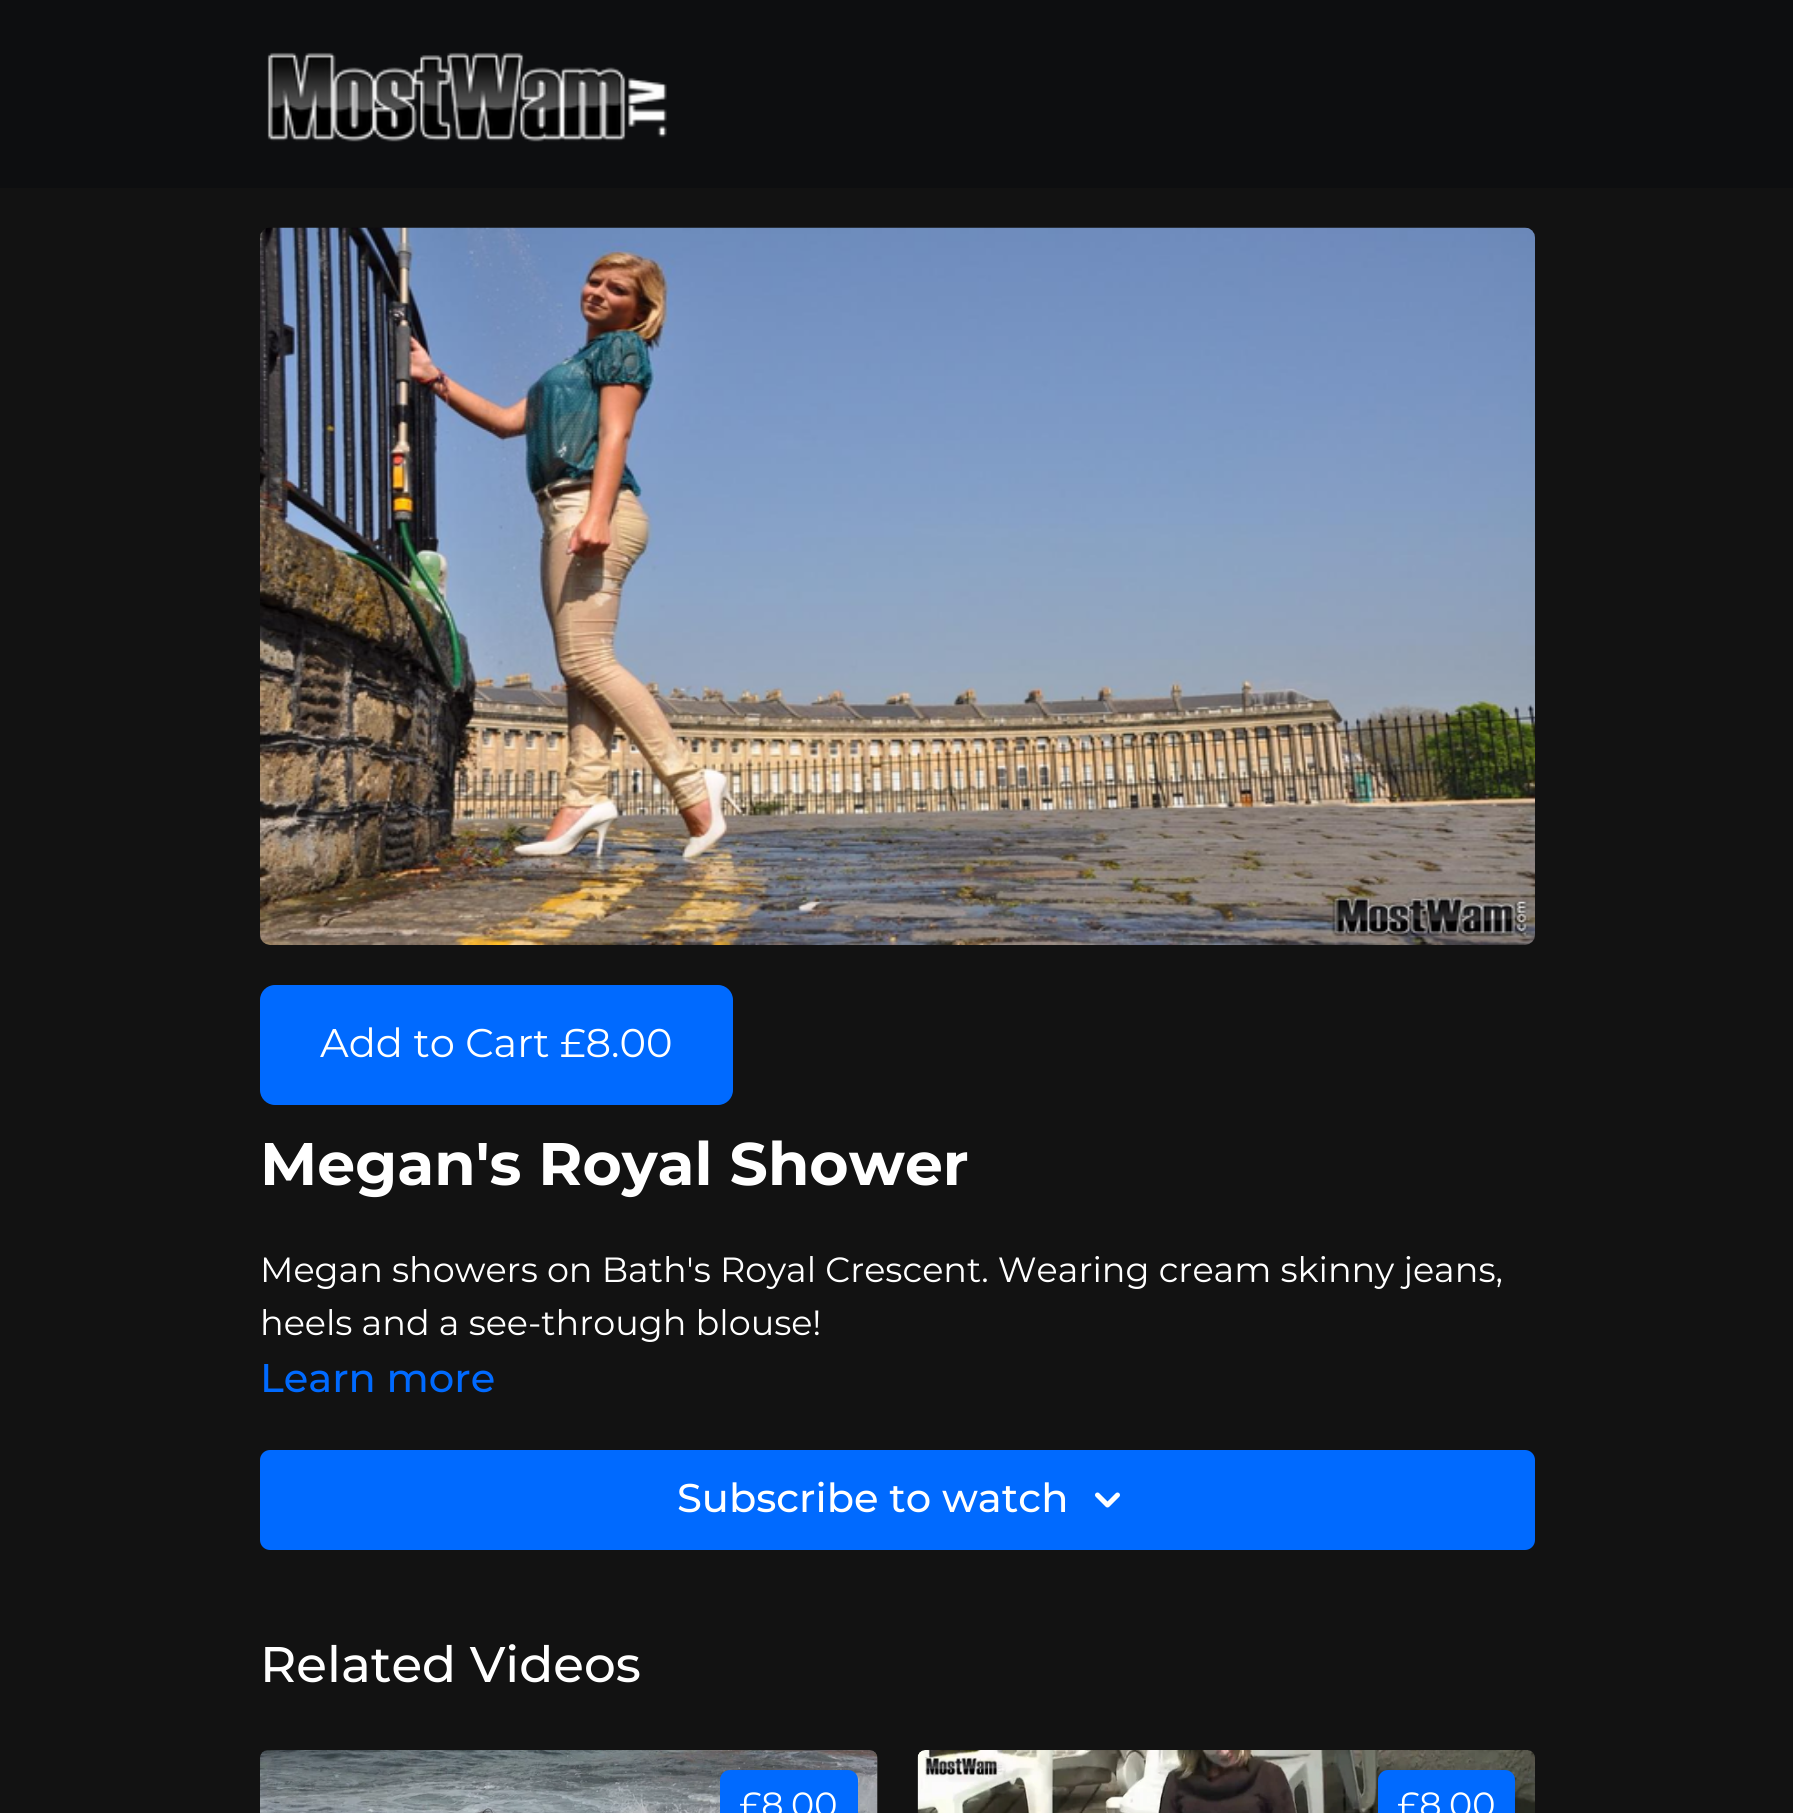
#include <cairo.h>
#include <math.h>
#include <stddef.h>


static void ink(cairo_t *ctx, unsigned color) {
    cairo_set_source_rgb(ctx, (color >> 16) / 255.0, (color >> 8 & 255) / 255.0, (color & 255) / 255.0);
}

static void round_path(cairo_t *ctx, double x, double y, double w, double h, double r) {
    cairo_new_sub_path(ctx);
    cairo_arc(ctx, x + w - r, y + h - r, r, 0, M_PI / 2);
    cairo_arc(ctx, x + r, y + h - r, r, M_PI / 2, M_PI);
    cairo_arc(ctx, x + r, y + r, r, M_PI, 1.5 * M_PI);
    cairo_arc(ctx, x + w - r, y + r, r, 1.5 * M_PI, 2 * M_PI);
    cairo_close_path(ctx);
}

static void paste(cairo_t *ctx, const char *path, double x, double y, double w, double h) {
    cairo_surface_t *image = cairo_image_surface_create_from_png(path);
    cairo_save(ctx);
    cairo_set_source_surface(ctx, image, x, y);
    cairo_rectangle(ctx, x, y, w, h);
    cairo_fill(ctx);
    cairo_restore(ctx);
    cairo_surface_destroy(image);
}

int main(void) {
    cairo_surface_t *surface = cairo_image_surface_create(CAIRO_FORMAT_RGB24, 1793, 1813);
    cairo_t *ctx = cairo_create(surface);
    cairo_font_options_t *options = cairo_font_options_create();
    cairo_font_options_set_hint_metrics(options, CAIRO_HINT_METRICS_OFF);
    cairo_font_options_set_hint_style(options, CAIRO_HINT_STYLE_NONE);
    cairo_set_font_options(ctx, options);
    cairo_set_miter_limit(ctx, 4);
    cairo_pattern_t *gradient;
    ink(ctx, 0x0D0E10);
    cairo_paint(ctx);
    paste(ctx, "media/1.png", 267, 52, 400, 90);
    ink(ctx, 0x121212);
    cairo_rectangle(ctx, 0, 188, 1793, 1625);
    cairo_fill(ctx);
    paste(ctx, "media/2.png", 260, 227, 1275, 718);
    ink(ctx, 0x006AFF);
    round_path(ctx, 260, 985, 473, 120, 15);
    cairo_fill(ctx);
    cairo_select_font_face(ctx, "Montserrat", CAIRO_FONT_SLANT_NORMAL, CAIRO_FONT_WEIGHT_NORMAL);
    cairo_set_font_size(ctx, 40);
    ink(ctx, 0xFFFFFF);
    cairo_move_to(ctx, 320, 1057);
    cairo_show_text(ctx, "Add to Cart £8.00");
    cairo_select_font_face(ctx, "Montserrat", CAIRO_FONT_SLANT_NORMAL, CAIRO_FONT_WEIGHT_BOLD);
    cairo_set_font_size(ctx, 60);
    cairo_move_to(ctx, 260, 1185);
    cairo_show_text(ctx, "Megan's Royal Shower");
    cairo_select_font_face(ctx, "Montserrat", CAIRO_FONT_SLANT_NORMAL, CAIRO_FONT_WEIGHT_NORMAL);
    cairo_set_font_size(ctx, 35);
    cairo_move_to(ctx, 260, 1282);
    cairo_show_text(ctx, "Megan showers on Bath's Royal Crescent. Wearing cream skinny jeans,");
    cairo_move_to(ctx, 260, 1335);
    cairo_show_text(ctx, "heels and a see-through blouse!");
    cairo_select_font_face(ctx, "Montserrat Medium", CAIRO_FONT_SLANT_NORMAL, CAIRO_FONT_WEIGHT_NORMAL);
    cairo_set_font_size(ctx, 40);
    ink(ctx, 0x006AFF);
    cairo_move_to(ctx, 260, 1392);
    cairo_show_text(ctx, "Learn more");
    round_path(ctx, 260, 1450, 1275, 100, 10);
    cairo_fill(ctx);
    ink(ctx, 0xFFFFFF);
    cairo_move_to(ctx, 677, 1512);
    cairo_show_text(ctx, "Subscribe to watch");
    paste(ctx, "media/3.png", 1095, 1492, 25, 16);
    cairo_set_font_size(ctx, 50);
    cairo_move_to(ctx, 260, 1682);
    cairo_show_text(ctx, "Related Videos");
    gradient = cairo_pattern_create_linear(260, 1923, 878, 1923);
    cairo_pattern_add_color_stop_rgba(gradient, 0.08, 0.192, 0.192, 0.192, 1);
    cairo_pattern_add_color_stop_rgba(gradient, 0.18, 0.18, 0.18, 0.18, 1);
    cairo_pattern_add_color_stop_rgba(gradient, 0.33, 0.173, 0.173, 0.173, 1);
    cairo_set_source(ctx, gradient);
    cairo_pattern_destroy(gradient);
    round_path(ctx, 260, 1750, 618, 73, 10);
    cairo_fill(ctx);
    paste(ctx, "media/4.png", 260, 1750, 618, 63);
    ink(ctx, 0x006AFF);
    round_path(ctx, 720, 1770, 138, 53, 10);
    cairo_fill(ctx);
    cairo_select_font_face(ctx, "Montserrat", CAIRO_FONT_SLANT_NORMAL, CAIRO_FONT_WEIGHT_NORMAL);
    cairo_set_font_size(ctx, 35);
    ink(ctx, 0xFFFFFF);
    cairo_move_to(ctx, 739, 1817);
    cairo_show_text(ctx, "£8.00");
    paste(ctx, "media/5.png", 917, 1750, 618, 63);
    ink(ctx, 0x006AFF);
    round_path(ctx, 1378, 1770, 137, 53, 10);
    cairo_fill(ctx);
    ink(ctx, 0xFFFFFF);
    cairo_move_to(ctx, 1397, 1817);
    cairo_show_text(ctx, "£8.00");
    cairo_surface_write_to_png(surface, "image.png");
    cairo_font_options_destroy(options);
    cairo_destroy(ctx);
    cairo_surface_destroy(surface);
    return 0;
}
